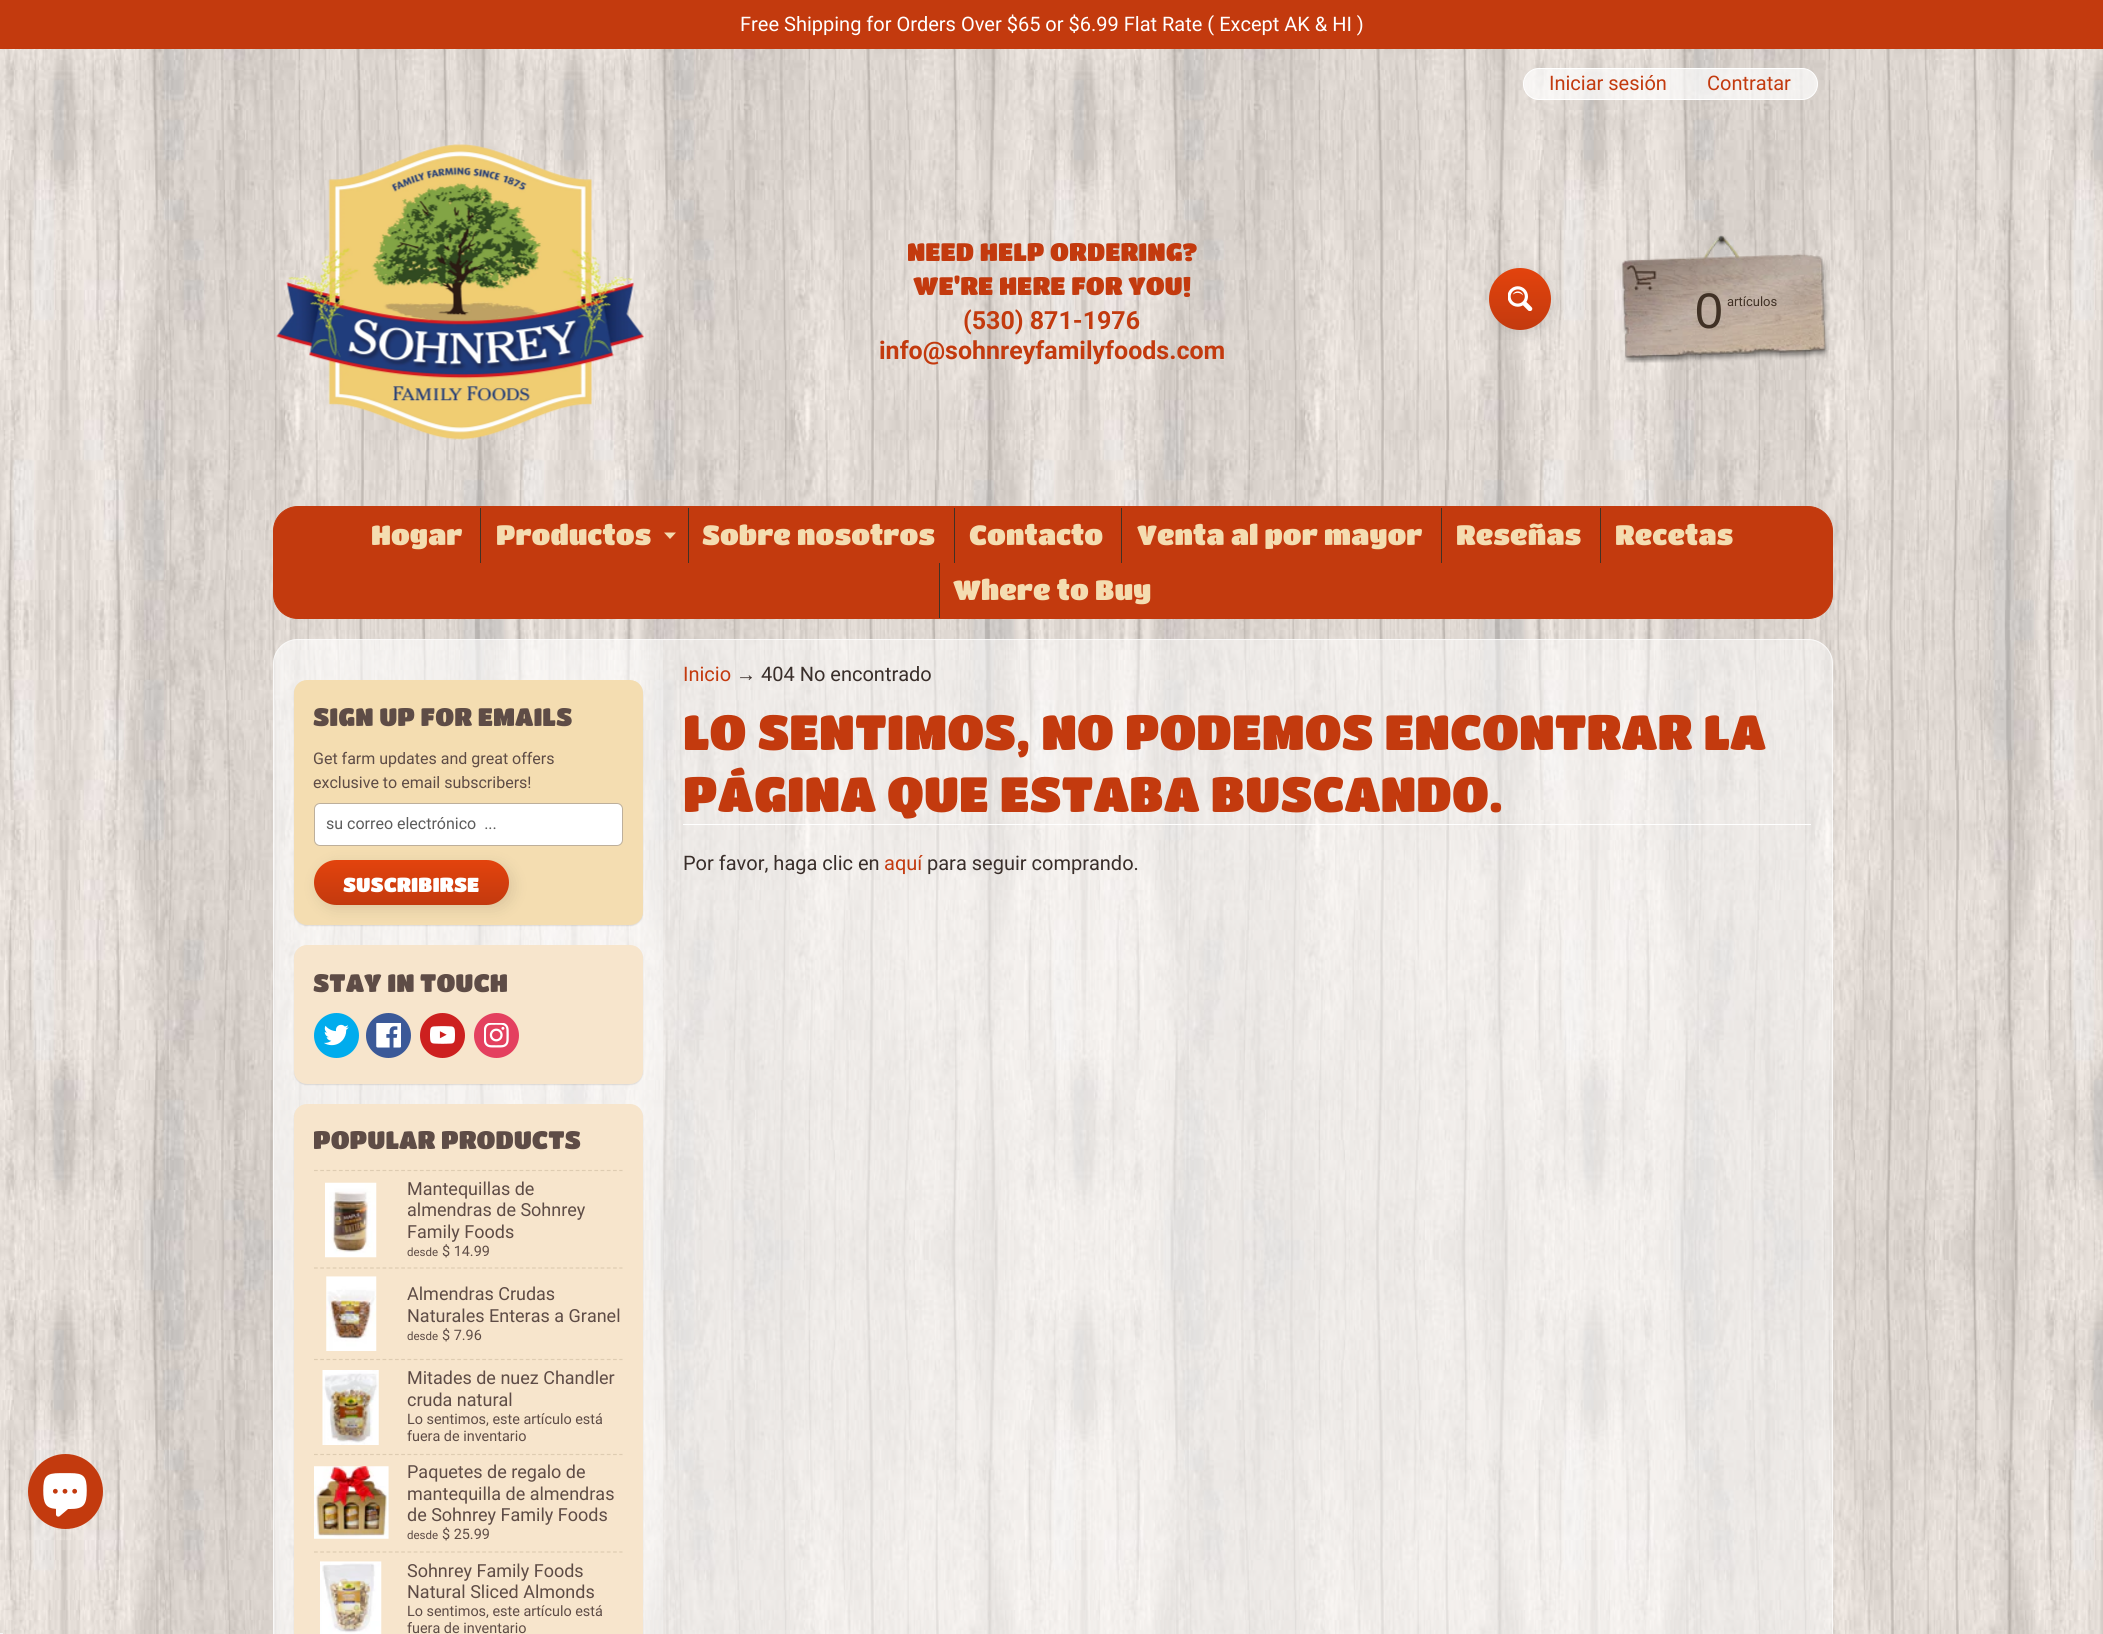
#include <cairo.h>
#include <math.h>
#include <stddef.h>

typedef struct { double x, y; const char *s; } line_t;

static void ink(cairo_t *ctx, unsigned color) {
    cairo_set_source_rgb(ctx, (color >> 16) / 255.0, (color >> 8 & 255) / 255.0, (color & 255) / 255.0);
}

static void round_path(cairo_t *ctx, double x, double y, double w, double h, double r) {
    cairo_new_sub_path(ctx);
    cairo_arc(ctx, x + w - r, y + h - r, r, 0, M_PI / 2);
    cairo_arc(ctx, x + r, y + h - r, r, M_PI / 2, M_PI);
    cairo_arc(ctx, x + r, y + r, r, M_PI, 1.5 * M_PI);
    cairo_arc(ctx, x + w - r, y + r, r, 1.5 * M_PI, 2 * M_PI);
    cairo_close_path(ctx);
}

static void blur_box(cairo_t *ctx, double x, double y, double w, double h, double r, double blur, double alpha) {
    cairo_push_group_with_content(ctx, CAIRO_CONTENT_ALPHA);
    cairo_set_operator(ctx, CAIRO_OPERATOR_SOURCE);
    for (int i = 15; i >= -15 && fmin(w, h) + blur * i / 3 > 0; i -= 2) {
        double e = blur * i / 6;
        cairo_set_source_rgba(ctx, 0, 0, 0, alpha * erfc((i - 1) / 8.5) / 2);
        round_path(ctx, x - e, y - e, w + 2 * e, h + 2 * e, fmax(0, fmin(r + e + blur * .6, fmin(w, h) / 2 + e)));
        cairo_fill(ctx);
    }
    cairo_pattern_t *soft = cairo_pop_group(ctx);
    cairo_mask(ctx, soft);
    cairo_pattern_destroy(soft);
}

static void paste(cairo_t *ctx, const char *path, double x, double y, double w, double h) {
    cairo_surface_t *image = cairo_image_surface_create_from_png(path);
    cairo_save(ctx);
    cairo_set_source_surface(ctx, image, x, y);
    cairo_rectangle(ctx, x, y, w, h);
    cairo_fill(ctx);
    cairo_restore(ctx);
    cairo_surface_destroy(image);
}

int main(void) {
    cairo_surface_t *surface = cairo_image_surface_create(CAIRO_FORMAT_RGB24, 2103, 1634);
    cairo_t *ctx = cairo_create(surface);
    cairo_font_options_t *options = cairo_font_options_create();
    cairo_font_options_set_hint_metrics(options, CAIRO_HINT_METRICS_OFF);
    cairo_font_options_set_hint_style(options, CAIRO_HINT_STYLE_NONE);
    cairo_set_font_options(ctx, options);
    cairo_set_miter_limit(ctx, 4);
    cairo_pattern_t *gradient;
    ink(ctx, 0xFFFFFF);
    cairo_paint(ctx);
    paste(ctx, "media/1.png", 0, 49, 2103, 1585);
    ink(ctx, 0xC33A0E);
    cairo_arc(ctx, 65.5, 1491.5, 37.5, 0, 2 * M_PI);
    cairo_fill(ctx);
    paste(ctx, "media/2.png", 43, 1473, 44, 44);
    cairo_rectangle(ctx, 0, 0, 2103, 49);
    cairo_fill(ctx);
    cairo_select_font_face(ctx, "Roboto", CAIRO_FONT_SLANT_NORMAL, CAIRO_FONT_WEIGHT_NORMAL);
    cairo_set_font_size(ctx, 20);
    ink(ctx, 0xFFFFFF);
    cairo_move_to(ctx, 740, 31);
    cairo_show_text(ctx, "Free Shipping for Orders Over $65 or $6.99 Flat Rate ( Except AK & HI )");
    paste(ctx, "media/3.png", 276, 144, 369, 296);
    cairo_select_font_face(ctx, "Titan One", CAIRO_FONT_SLANT_NORMAL, CAIRO_FONT_WEIGHT_NORMAL);
    cairo_set_font_size(ctx, 25);
    ink(ctx, 0xC33A0E);
    cairo_move_to(ctx, 907, 261);
    cairo_show_text(ctx, "NEED HELP ORDERING?");
    cairo_move_to(ctx, 913, 295);
    cairo_show_text(ctx, "WE'RE HERE FOR YOU!");
    cairo_select_font_face(ctx, "Roboto", CAIRO_FONT_SLANT_NORMAL, CAIRO_FONT_WEIGHT_BOLD);
    cairo_move_to(ctx, 963, 329);
    cairo_show_text(ctx, "(530) 871-1976");
    cairo_move_to(ctx, 879, 359);
    cairo_show_text(ctx, "info@sohnreyfamilyfoods.com");
    cairo_set_source_rgba(ctx, 1, 1, 1, 0.7);
    round_path(ctx, 1523.5, 68.5, 294, 31, 15.5);
    cairo_fill_preserve(ctx);
    ink(ctx, 0xFFFFFF);
    cairo_set_line_width(ctx, 1);
    cairo_stroke(ctx);
    cairo_select_font_face(ctx, "Roboto", CAIRO_FONT_SLANT_NORMAL, CAIRO_FONT_WEIGHT_NORMAL);
    cairo_set_font_size(ctx, 20);
    ink(ctx, 0xC33A0E);
    cairo_move_to(ctx, 1549, 90);
    cairo_show_text(ctx, "Iniciar sesión");
    cairo_move_to(ctx, 1707, 90);
    cairo_show_text(ctx, "Contratar");
    ink(ctx, 0x000000);
    blur_box(ctx, 1493, 271, 62, 63, 31, 7.5, 0.1);
    gradient = cairo_pattern_create_linear(1520, 268, 1520, 330);
    cairo_pattern_add_color_stop_rgba(gradient, 0, 0.89, 0.263, 0.051, 1);
    cairo_pattern_add_color_stop_rgba(gradient, 1, 0.765, 0.227, 0.055, 1);
    cairo_set_source(ctx, gradient);
    cairo_pattern_destroy(gradient);
    cairo_arc(ctx, 1520, 299, 31, 0, 2 * M_PI);
    cairo_fill(ctx);
    paste(ctx, "media/4.png", 1508, 286, 25, 25);
    paste(ctx, "media/5.png", 1620, 235, 209, 128);
    cairo_select_font_face(ctx, "Liberation Sans", CAIRO_FONT_SLANT_NORMAL, CAIRO_FONT_WEIGHT_NORMAL);
    cairo_set_font_size(ctx, 50);
    ink(ctx, 0x403125);
    cairo_move_to(ctx, 1695, 328);
    cairo_show_text(ctx, "0");
    cairo_select_font_face(ctx, "Roboto", CAIRO_FONT_SLANT_NORMAL, CAIRO_FONT_WEIGHT_NORMAL);
    cairo_set_font_size(ctx, 13);
    cairo_move_to(ctx, 1727, 306);
    cairo_show_text(ctx, "artículos");
    ink(ctx, 0xC33A0E);
    round_path(ctx, 273.5, 506.5, 1559, 112, 24.5);
    cairo_fill_preserve(ctx);
    cairo_stroke(ctx);
    cairo_select_font_face(ctx, "Titan One", CAIRO_FONT_SLANT_NORMAL, CAIRO_FONT_WEIGHT_NORMAL);
    cairo_set_font_size(ctx, 27.5);
    ink(ctx, 0xF4DDB1);
    cairo_move_to(ctx, 371, 545);
    cairo_show_text(ctx, "Hogar");
    ink(ctx, 0x413124);
    cairo_rectangle(ctx, 480, 508, 1, 55);
    cairo_fill(ctx);
    ink(ctx, 0xF4DDB1);
    cairo_move_to(ctx, 496, 545);
    cairo_show_text(ctx, "Productos");
    cairo_new_path(ctx);
    cairo_move_to(ctx, 664, 532.5);
    cairo_line_to(ctx, 676, 532.5);
    cairo_line_to(ctx, 670, 539);
    cairo_close_path(ctx);
    cairo_fill(ctx);
    ink(ctx, 0x413124);
    cairo_rectangle(ctx, 688, 508, 1, 55);
    cairo_fill(ctx);
    ink(ctx, 0xF4DDB1);
    cairo_move_to(ctx, 702, 545);
    cairo_show_text(ctx, "Sobre nosotros");
    ink(ctx, 0x413124);
    cairo_rectangle(ctx, 954, 508, 1, 55);
    cairo_fill(ctx);
    ink(ctx, 0xF4DDB1);
    cairo_move_to(ctx, 969, 545);
    cairo_show_text(ctx, "Contacto");
    ink(ctx, 0x413124);
    cairo_rectangle(ctx, 1121, 508, 1, 55);
    cairo_fill(ctx);
    ink(ctx, 0xF4DDB1);
    cairo_move_to(ctx, 1137, 545);
    cairo_show_text(ctx, "Venta al por mayor");
    ink(ctx, 0x413124);
    cairo_rectangle(ctx, 1441, 508, 1, 55);
    cairo_fill(ctx);
    ink(ctx, 0xF4DDB1);
    cairo_move_to(ctx, 1456, 545);
    cairo_show_text(ctx, "Reseñas");
    ink(ctx, 0x413124);
    cairo_rectangle(ctx, 1600, 508, 1, 55);
    cairo_fill(ctx);
    ink(ctx, 0xF4DDB1);
    cairo_move_to(ctx, 1615, 545);
    cairo_show_text(ctx, "Recetas");
    ink(ctx, 0x413124);
    cairo_rectangle(ctx, 939, 563, 1, 55);
    cairo_fill(ctx);
    ink(ctx, 0xF4DDB1);
    cairo_move_to(ctx, 953, 600);
    cairo_show_text(ctx, "Where to Buy");
    cairo_set_source_rgba(ctx, 1, 1, 1, 0.5);
    round_path(ctx, 273, 639, 1560, 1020, 25);
    cairo_fill(ctx);
    round_path(ctx, 273.5, 639.5, 1559, 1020, 24.5);
    cairo_set_source_rgba(ctx, 1, 1, 1, 0.7);
    cairo_stroke(ctx);
    cairo_set_source_rgba(ctx, 1, 1, 1, 0.25);
    cairo_new_path(ctx);
    cairo_move_to(ctx, 298, 640);
    cairo_line_to(ctx, 663, 640);
    cairo_line_to(ctx, 663, 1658);
    cairo_line_to(ctx, 298, 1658);
    cairo_curve_to(ctx, 284.5, 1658, 274, 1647.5, 274, 1634);
    cairo_line_to(ctx, 274, 664);
    cairo_curve_to(ctx, 274, 650.5, 284.5, 640, 298, 640);
    cairo_close_path(ctx);
    cairo_fill(ctx);
    ink(ctx, 0x000000);
    blur_box(ctx, 294, 681, 349, 245, 13, 0.5, 0.1);
    ink(ctx, 0xF4DDB1);
    round_path(ctx, 294, 680, 349, 245, 13);
    cairo_fill(ctx);
    cairo_set_font_size(ctx, 25);
    ink(ctx, 0x5E4C46);
    cairo_move_to(ctx, 313, 726);
    cairo_show_text(ctx, "SIGN UP FOR EMAILS");
    cairo_select_font_face(ctx, "Roboto", CAIRO_FONT_SLANT_NORMAL, CAIRO_FONT_WEIGHT_NORMAL);
    cairo_set_font_size(ctx, 16);
    cairo_move_to(ctx, 313, 764);
    cairo_show_text(ctx, "Get farm updates and great offers");
    cairo_move_to(ctx, 313, 788);
    cairo_show_text(ctx, "exclusive to email subscribers!");
    ink(ctx, 0xFFFFFF);
    round_path(ctx, 314.5, 803.5, 308, 42, 5.5);
    cairo_fill_preserve(ctx);
    ink(ctx, 0xBDAF9B);
    cairo_stroke(ctx);
    ink(ctx, 0x5C5C5C);
    cairo_move_to(ctx, 326, 829);
    cairo_show_text(ctx, "su correo electrónico  ...");
    ink(ctx, 0x000000);
    blur_box(ctx, 318, 864, 195, 45, 22.5, 7.5, 0.1);
    gradient = cairo_pattern_create_linear(411, 860, 411, 905);
    cairo_pattern_add_color_stop_rgba(gradient, 0, 0.89, 0.263, 0.051, 1);
    cairo_pattern_add_color_stop_rgba(gradient, 1, 0.765, 0.227, 0.055, 1);
    cairo_set_source(ctx, gradient);
    cairo_pattern_destroy(gradient);
    round_path(ctx, 314, 860, 195, 45, 22.5);
    cairo_fill(ctx);
    cairo_select_font_face(ctx, "Titan One", CAIRO_FONT_SLANT_NORMAL, CAIRO_FONT_WEIGHT_NORMAL);
    cairo_set_font_size(ctx, 20);
    ink(ctx, 0xFFFFFF);
    cairo_move_to(ctx, 343, 892);
    cairo_show_text(ctx, "SUSCRIBIRSE");
    ink(ctx, 0x000000);
    blur_box(ctx, 294, 946, 349, 139, 13, 0.5, 0.1);
    ink(ctx, 0xF7E5CC);
    round_path(ctx, 294, 945, 349, 139, 13);
    cairo_fill(ctx);
    cairo_set_font_size(ctx, 25);
    ink(ctx, 0x5E4C46);
    cairo_move_to(ctx, 313, 992);
    cairo_show_text(ctx, "STAY IN TOUCH");
    ink(ctx, 0x00ACED);
    cairo_new_path(ctx);
    cairo_arc(ctx, 336.5, 1035.5, 22.5, 0, 2 * M_PI);
    cairo_fill(ctx);
    paste(ctx, "media/6.png", 324, 1024, 25, 22);
    ink(ctx, 0x3B5998);
    cairo_arc(ctx, 388.5, 1035.5, 22.5, 0, 2 * M_PI);
    cairo_fill(ctx);
    paste(ctx, "media/7.png", 376, 1023, 25, 25);
    ink(ctx, 0xCD201F);
    cairo_arc(ctx, 442.5, 1035.5, 22.5, 0, 2 * M_PI);
    cairo_fill(ctx);
    paste(ctx, "media/8.png", 430, 1026, 25, 18);
    ink(ctx, 0xE4405F);
    cairo_arc(ctx, 496.5, 1035.5, 22.5, 0, 2 * M_PI);
    cairo_fill(ctx);
    paste(ctx, "media/9.png", 484, 1023, 25, 25);
    ink(ctx, 0x000000);
    blur_box(ctx, 294, 1105, 349, 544, 13, 0.5, 0.1);
    ink(ctx, 0xF7E5CC);
    round_path(ctx, 294, 1104, 349, 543, 13);
    cairo_fill(ctx);
    ink(ctx, 0x5E4C46);
    cairo_move_to(ctx, 313, 1149);
    cairo_show_text(ctx, "POPULAR PRODUCTS");
    cairo_new_path(ctx);
    cairo_move_to(ctx, 314, 1170.5);
    cairo_line_to(ctx, 622.5, 1170.5);
    ink(ctx, 0xDECCB2);
    cairo_set_line_width(ctx, 1.2);
    cairo_set_dash(ctx, (double[]){3.75, 2.48}, 2, 0);
    cairo_stroke(ctx);
    paste(ctx, "media/10.png", 325, 1182, 52, 76);
    cairo_select_font_face(ctx, "Roboto", CAIRO_FONT_SLANT_NORMAL, CAIRO_FONT_WEIGHT_NORMAL);
    cairo_set_font_size(ctx, 18);
    ink(ctx, 0x5E4C46);
    {
        static const line_t items[] = {
            {407, 1195, "Mantequillas de"},
            {407, 1216, "almendras de Sohnrey"},
            {407, 1238, "Family Foods"},
        };
        for (size_t i = 0; i < sizeof items / sizeof *items; i++) {
            cairo_move_to(ctx, items[i].x, items[i].y);
            cairo_show_text(ctx, items[i].s);
        }
    }
    cairo_set_font_size(ctx, 11.5);
    cairo_move_to(ctx, 407, 1256);
    cairo_show_text(ctx, "desde");
    cairo_set_font_size(ctx, 14.4);
    cairo_move_to(ctx, 442, 1256);
    cairo_show_text(ctx, "$ 14.99");
    cairo_new_path(ctx);
    cairo_move_to(ctx, 314, 1268);
    cairo_line_to(ctx, 622.5, 1268);
    ink(ctx, 0xDECCB2);
    cairo_stroke(ctx);
    paste(ctx, "media/11.png", 326, 1276, 51, 75);
    cairo_set_font_size(ctx, 18);
    ink(ctx, 0x5E4C46);
    cairo_move_to(ctx, 407, 1300);
    cairo_show_text(ctx, "Almendras Crudas");
    cairo_move_to(ctx, 407, 1322);
    cairo_show_text(ctx, "Naturales Enteras a Granel");
    cairo_set_font_size(ctx, 11.5);
    cairo_move_to(ctx, 407, 1340);
    cairo_show_text(ctx, "desde");
    cairo_set_font_size(ctx, 14.4);
    cairo_move_to(ctx, 442, 1340);
    cairo_show_text(ctx, "$ 7.96");
    cairo_new_path(ctx);
    cairo_move_to(ctx, 314, 1359.5);
    cairo_line_to(ctx, 622.5, 1359.5);
    ink(ctx, 0xDECCB2);
    cairo_stroke(ctx);
    paste(ctx, "media/12.png", 322, 1370, 57, 75);
    cairo_set_font_size(ctx, 18);
    ink(ctx, 0x5E4C46);
    cairo_move_to(ctx, 407, 1384);
    cairo_show_text(ctx, "Mitades de nuez Chandler");
    cairo_move_to(ctx, 407, 1406);
    cairo_show_text(ctx, "cruda natural");
    cairo_set_font_size(ctx, 14.4);
    cairo_move_to(ctx, 407, 1424);
    cairo_show_text(ctx, "Lo sentimos, este artículo está");
    cairo_move_to(ctx, 407, 1441);
    cairo_show_text(ctx, "fuera de inventario");
    cairo_new_path(ctx);
    cairo_move_to(ctx, 314, 1454.5);
    cairo_line_to(ctx, 622.5, 1454.5);
    ink(ctx, 0xDECCB2);
    cairo_stroke(ctx);
    paste(ctx, "media/13.png", 314, 1466, 75, 73);
    cairo_set_font_size(ctx, 18);
    ink(ctx, 0x5E4C46);
    {
        static const line_t items[] = {
            {407, 1478, "Paquetes de regalo de"},
            {407, 1500, "mantequilla de almendras"},
            {407, 1521, "de Sohnrey Family Foods"},
        };
        for (size_t i = 0; i < sizeof items / sizeof *items; i++) {
            cairo_move_to(ctx, items[i].x, items[i].y);
            cairo_show_text(ctx, items[i].s);
        }
    }
    cairo_set_font_size(ctx, 11.5);
    cairo_move_to(ctx, 407, 1539);
    cairo_show_text(ctx, "desde");
    cairo_set_font_size(ctx, 14.4);
    cairo_move_to(ctx, 442, 1539);
    cairo_show_text(ctx, "$ 25.99");
    cairo_new_path(ctx);
    cairo_move_to(ctx, 314, 1552);
    cairo_line_to(ctx, 622.5, 1552);
    ink(ctx, 0xDECCB2);
    cairo_stroke(ctx);
    paste(ctx, "media/14.png", 320, 1561, 62, 73);
    cairo_set_font_size(ctx, 18);
    ink(ctx, 0x5E4C46);
    cairo_move_to(ctx, 407, 1577);
    cairo_show_text(ctx, "Sohnrey Family Foods");
    cairo_move_to(ctx, 407, 1598);
    cairo_show_text(ctx, "Natural Sliced Almonds");
    cairo_set_font_size(ctx, 14.4);
    cairo_move_to(ctx, 407, 1616);
    cairo_show_text(ctx, "Lo sentimos, este artículo está");
    cairo_move_to(ctx, 407, 1633);
    cairo_show_text(ctx, "fuera de inventario");
    cairo_set_font_size(ctx, 20);
    ink(ctx, 0xC33A0E);
    cairo_move_to(ctx, 683, 681);
    cairo_show_text(ctx, "Inicio");
    cairo_select_font_face(ctx, "Liberation Sans", CAIRO_FONT_SLANT_NORMAL, CAIRO_FONT_WEIGHT_NORMAL);
    ink(ctx, 0x392E2A);
    cairo_move_to(ctx, 736, 681);
    cairo_show_text(ctx, "→");
    cairo_select_font_face(ctx, "Roboto", CAIRO_FONT_SLANT_NORMAL, CAIRO_FONT_WEIGHT_NORMAL);
    cairo_move_to(ctx, 761, 681);
    cairo_show_text(ctx, "404 No encontrado");
    ink(ctx, 0xFFFFFF);
    cairo_rectangle(ctx, 683, 824, 1128, 1);
    cairo_fill(ctx);
    cairo_select_font_face(ctx, "Titan One", CAIRO_FONT_SLANT_NORMAL, CAIRO_FONT_WEIGHT_NORMAL);
    cairo_set_font_size(ctx, 48.8);
    ink(ctx, 0xC33A0E);
    cairo_move_to(ctx, 683, 750);
    cairo_show_text(ctx, "LO SENTIMOS, NO PODEMOS ENCONTRAR LA");
    cairo_move_to(ctx, 683, 812);
    cairo_show_text(ctx, "PÁGINA QUE ESTABA BUSCANDO.");
    cairo_select_font_face(ctx, "Roboto", CAIRO_FONT_SLANT_NORMAL, CAIRO_FONT_WEIGHT_NORMAL);
    cairo_set_font_size(ctx, 20);
    ink(ctx, 0x392E2A);
    cairo_move_to(ctx, 683, 870);
    cairo_show_text(ctx, "Por favor, haga clic en");
    ink(ctx, 0xC33A0E);
    cairo_move_to(ctx, 884, 870);
    cairo_show_text(ctx, "aquí");
    ink(ctx, 0x392E2A);
    cairo_move_to(ctx, 927, 870);
    cairo_show_text(ctx, "para seguir comprando.");
    ink(ctx, 0xF5F5F5);
    cairo_rectangle(ctx, 0, 1633, 3, 1);
    cairo_fill(ctx);
    cairo_surface_write_to_png(surface, "image.png");
    cairo_font_options_destroy(options);
    cairo_destroy(ctx);
    cairo_surface_destroy(surface);
    return 0;
}
